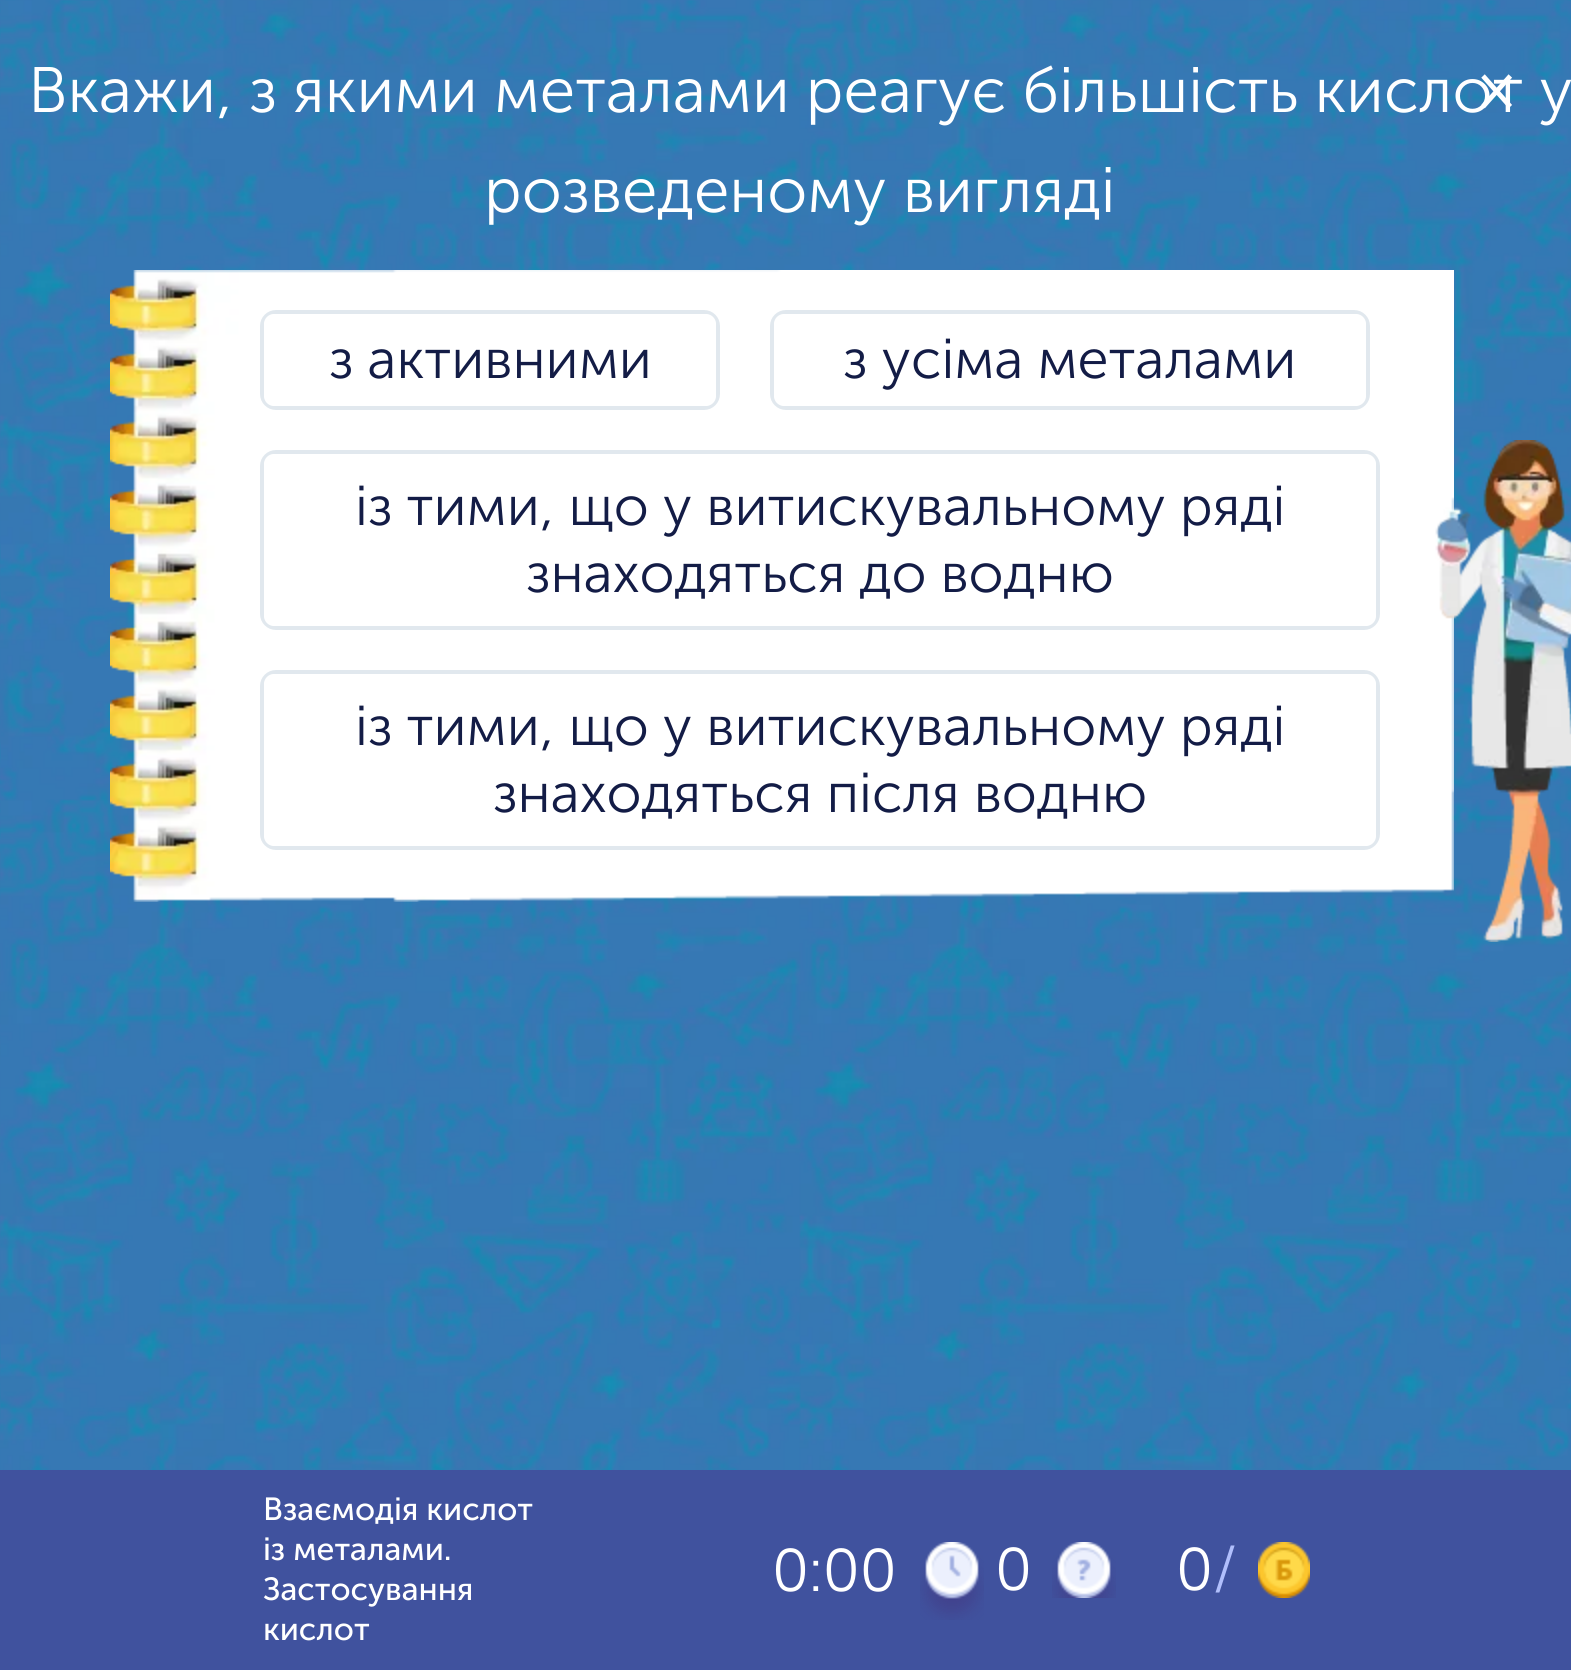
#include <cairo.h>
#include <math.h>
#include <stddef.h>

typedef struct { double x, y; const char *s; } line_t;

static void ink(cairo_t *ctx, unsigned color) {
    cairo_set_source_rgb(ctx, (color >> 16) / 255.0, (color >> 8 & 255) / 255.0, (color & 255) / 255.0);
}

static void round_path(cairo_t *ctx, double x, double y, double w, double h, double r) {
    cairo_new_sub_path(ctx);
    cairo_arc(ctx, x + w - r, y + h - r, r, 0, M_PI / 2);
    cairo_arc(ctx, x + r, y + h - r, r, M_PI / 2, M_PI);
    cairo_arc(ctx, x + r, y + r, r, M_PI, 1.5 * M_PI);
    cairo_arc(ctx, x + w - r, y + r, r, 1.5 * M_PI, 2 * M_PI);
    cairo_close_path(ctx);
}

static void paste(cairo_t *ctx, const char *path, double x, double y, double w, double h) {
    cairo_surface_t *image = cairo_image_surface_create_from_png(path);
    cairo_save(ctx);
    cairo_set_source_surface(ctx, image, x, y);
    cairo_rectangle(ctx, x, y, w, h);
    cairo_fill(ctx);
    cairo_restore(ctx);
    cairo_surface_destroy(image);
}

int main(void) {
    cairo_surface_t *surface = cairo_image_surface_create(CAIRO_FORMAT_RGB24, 1571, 1670);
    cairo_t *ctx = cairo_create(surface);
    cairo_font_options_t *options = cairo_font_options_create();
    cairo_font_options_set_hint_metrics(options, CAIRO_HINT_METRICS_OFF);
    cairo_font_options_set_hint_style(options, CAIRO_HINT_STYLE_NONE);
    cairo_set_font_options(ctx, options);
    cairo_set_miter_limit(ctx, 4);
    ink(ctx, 0xFFFFFF);
    cairo_paint(ctx);
    paste(ctx, "media/1.png", 0, 0, 1571, 1470);
    cairo_select_font_face(ctx, "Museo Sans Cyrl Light", CAIRO_FONT_SLANT_NORMAL, CAIRO_FONT_WEIGHT_NORMAL);
    cairo_set_font_size(ctx, 64);
    ink(ctx, 0xFFFFFF);
    cairo_move_to(ctx, 28, 112);
    cairo_show_text(ctx, "Вкажи, з якими металами реагує більшість кислот у");
    cairo_move_to(ctx, 484, 212);
    cairo_show_text(ctx, "розведеному вигляді");
    paste(ctx, "media/3.png", 393, 270, 1061, 632);
    paste(ctx, "media/2.png", 110, 270, 1072, 632);
    round_path(ctx, 262, 312, 456, 96, 14);
    ink(ctx, 0xE1E8EE);
    cairo_set_line_width(ctx, 4);
    cairo_stroke(ctx);
    ink(ctx, 0xFFFFFF);
    round_path(ctx, 264, 314, 452, 92, 10);
    cairo_fill(ctx);
    cairo_set_font_size(ctx, 56);
    ink(ctx, 0x131C46);
    cairo_move_to(ctx, 329, 378);
    cairo_show_text(ctx, "з активними");
    round_path(ctx, 772, 312, 596, 96, 14);
    ink(ctx, 0xE1E8EE);
    cairo_stroke(ctx);
    ink(ctx, 0xFFFFFF);
    round_path(ctx, 774, 314, 592, 92, 10);
    cairo_fill(ctx);
    ink(ctx, 0x131C46);
    cairo_move_to(ctx, 843, 378);
    cairo_show_text(ctx, "з усіма металами");
    round_path(ctx, 262, 452, 1116, 176, 14);
    ink(ctx, 0xE1E8EE);
    cairo_stroke(ctx);
    ink(ctx, 0xFFFFFF);
    round_path(ctx, 264, 454, 1112, 172, 10);
    cairo_fill(ctx);
    ink(ctx, 0x131C46);
    cairo_move_to(ctx, 355, 525);
    cairo_show_text(ctx, "із тими, що у витискувальному ряді");
    cairo_move_to(ctx, 526, 592);
    cairo_show_text(ctx, "знаходяться до водню");
    paste(ctx, "media/4.png", 1435, 440, 136, 502);
    round_path(ctx, 262, 672, 1116, 176, 14);
    ink(ctx, 0xE1E8EE);
    cairo_stroke(ctx);
    ink(ctx, 0xFFFFFF);
    round_path(ctx, 264, 674, 1112, 172, 10);
    cairo_fill(ctx);
    ink(ctx, 0x131C46);
    cairo_move_to(ctx, 355, 745);
    cairo_show_text(ctx, "із тими, що у витискувальному ряді");
    cairo_move_to(ctx, 493, 812);
    cairo_show_text(ctx, "знаходяться після водню");
    cairo_select_font_face(ctx, "Museo Sans Cyrl", CAIRO_FONT_SLANT_NORMAL, CAIRO_FONT_WEIGHT_BOLD);
    ink(ctx, 0xFFFFFF);
    cairo_move_to(ctx, 1480, 108);
    cairo_show_text(ctx, "×");
    ink(ctx, 0x40529E);
    cairo_rectangle(ctx, 0, 1470, 1571, 200);
    cairo_fill(ctx);
    cairo_select_font_face(ctx, "Museo Sans Cyrl", CAIRO_FONT_SLANT_NORMAL, CAIRO_FONT_WEIGHT_NORMAL);
    cairo_set_font_size(ctx, 32);
    ink(ctx, 0xFFFFFF);
    {
        static const line_t items[] = {
            {263, 1520, "Взаємодія кислот"},
            {263, 1560, "із металами."},
            {263, 1600, "Застосування"},
            {263, 1640, "кислот"},
        };
        for (size_t i = 0; i < sizeof items / sizeof *items; i++) {
            cairo_move_to(ctx, items[i].x, items[i].y);
            cairo_show_text(ctx, items[i].s);
        }
    }
    cairo_select_font_face(ctx, "Museo Sans Cyrl Light", CAIRO_FONT_SLANT_NORMAL, CAIRO_FONT_WEIGHT_NORMAL);
    cairo_set_font_size(ctx, 60);
    cairo_move_to(ctx, 772, 1591);
    cairo_show_text(ctx, "0:00");
    paste(ctx, "media/5.png", 920, 1542, 64, 78);
    cairo_move_to(ctx, 995, 1590);
    cairo_show_text(ctx, "0");
    paste(ctx, "media/6.png", 1052, 1542, 64, 56);
    cairo_move_to(ctx, 1176, 1590);
    cairo_show_text(ctx, "0");
    ink(ctx, 0xB1BFFC);
    cairo_move_to(ctx, 1213, 1590);
    cairo_show_text(ctx, "/");
    paste(ctx, "media/7.png", 1258, 1542, 52, 56);
    cairo_surface_write_to_png(surface, "image.png");
    cairo_font_options_destroy(options);
    cairo_destroy(ctx);
    cairo_surface_destroy(surface);
    return 0;
}
